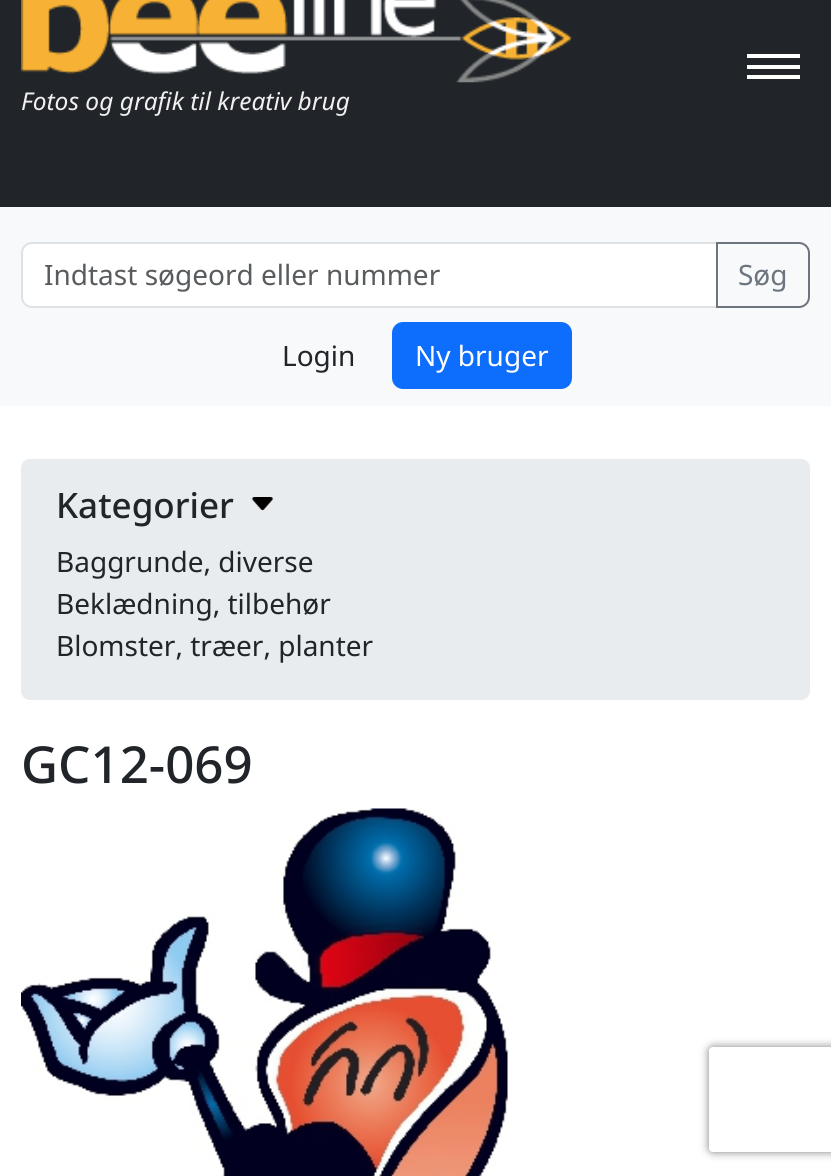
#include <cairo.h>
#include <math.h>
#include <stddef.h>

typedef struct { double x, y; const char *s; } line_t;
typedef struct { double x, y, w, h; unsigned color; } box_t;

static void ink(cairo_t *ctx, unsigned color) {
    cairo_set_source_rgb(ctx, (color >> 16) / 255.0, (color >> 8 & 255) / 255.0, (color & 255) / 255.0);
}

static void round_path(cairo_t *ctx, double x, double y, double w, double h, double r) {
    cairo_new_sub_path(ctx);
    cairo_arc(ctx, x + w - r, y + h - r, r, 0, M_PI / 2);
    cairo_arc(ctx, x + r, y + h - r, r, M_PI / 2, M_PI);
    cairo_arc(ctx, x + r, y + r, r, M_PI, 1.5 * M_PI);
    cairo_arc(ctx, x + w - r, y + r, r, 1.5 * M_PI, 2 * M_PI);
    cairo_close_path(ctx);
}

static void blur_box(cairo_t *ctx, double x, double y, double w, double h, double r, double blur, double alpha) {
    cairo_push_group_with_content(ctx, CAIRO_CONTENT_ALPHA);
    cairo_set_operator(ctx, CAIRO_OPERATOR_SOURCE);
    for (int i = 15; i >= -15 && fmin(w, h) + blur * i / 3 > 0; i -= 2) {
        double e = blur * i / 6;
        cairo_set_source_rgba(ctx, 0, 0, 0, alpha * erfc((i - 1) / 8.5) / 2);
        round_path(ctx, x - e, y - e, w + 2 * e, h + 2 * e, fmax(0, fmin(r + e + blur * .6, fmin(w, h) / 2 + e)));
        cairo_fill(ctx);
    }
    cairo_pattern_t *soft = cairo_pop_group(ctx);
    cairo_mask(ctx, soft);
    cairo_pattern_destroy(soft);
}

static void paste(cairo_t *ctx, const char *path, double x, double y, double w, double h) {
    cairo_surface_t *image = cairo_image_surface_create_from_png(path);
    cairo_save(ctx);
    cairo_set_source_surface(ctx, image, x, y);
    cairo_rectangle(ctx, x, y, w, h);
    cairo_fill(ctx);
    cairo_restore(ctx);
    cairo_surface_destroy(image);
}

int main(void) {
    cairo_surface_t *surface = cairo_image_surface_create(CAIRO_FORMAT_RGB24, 831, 1176);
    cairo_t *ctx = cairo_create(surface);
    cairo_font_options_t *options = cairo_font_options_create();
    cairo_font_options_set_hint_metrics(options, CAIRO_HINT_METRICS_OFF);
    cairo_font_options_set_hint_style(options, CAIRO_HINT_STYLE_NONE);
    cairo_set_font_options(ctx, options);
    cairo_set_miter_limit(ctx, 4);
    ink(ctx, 0xFFFFFF);
    cairo_paint(ctx);
    {
        static const box_t items[] = {
            {0, 0, 831, 207, 0x212529},
            {747, 54, 53, 4, 0xFFFFFF},
            {747, 65, 53, 4, 0xFFFFFF},
            {747, 75, 53, 4, 0xFFFFFF},
        };
        for (size_t i = 0; i < sizeof items / sizeof *items; i++) {
            ink(ctx, items[i].color);
            cairo_rectangle(ctx, items[i].x, items[i].y, items[i].w, items[i].h);
            cairo_fill(ctx);
        }
    }
    paste(ctx, "media/1.png", 21, 0, 552, 83);
    cairo_select_font_face(ctx, "Noto Sans", CAIRO_FONT_SLANT_ITALIC, CAIRO_FONT_WEIGHT_NORMAL);
    cairo_set_font_size(ctx, 24.5);
    ink(ctx, 0xF0F0F0);
    cairo_move_to(ctx, 21, 110);
    cairo_show_text(ctx, "Fotos og grafik til kreativ brug");
    ink(ctx, 0xF8F9FA);
    cairo_rectangle(ctx, 0, 207, 831, 199);
    cairo_fill(ctx);
    ink(ctx, 0xFFFFFF);
    cairo_new_path(ctx);
    cairo_move_to(ctx, 32, 243);
    cairo_line_to(ctx, 717, 243);
    cairo_line_to(ctx, 717, 307);
    cairo_line_to(ctx, 32, 307);
    cairo_curve_to(ctx, 26.5, 307, 22, 302.5, 22, 297);
    cairo_line_to(ctx, 22, 253);
    cairo_curve_to(ctx, 22, 247.5, 26.5, 243, 32, 243);
    cairo_close_path(ctx);
    cairo_fill_preserve(ctx);
    ink(ctx, 0xDEE2E6);
    cairo_stroke(ctx);
    cairo_select_font_face(ctx, "Noto Sans", CAIRO_FONT_SLANT_NORMAL, CAIRO_FONT_WEIGHT_NORMAL);
    cairo_set_font_size(ctx, 28);
    ink(ctx, 0x595C5F);
    cairo_move_to(ctx, 44, 285);
    cairo_show_text(ctx, "Indtast søgeord eller nummer");
    cairo_new_path(ctx);
    cairo_move_to(ctx, 717, 243);
    cairo_line_to(ctx, 799, 243);
    cairo_curve_to(ctx, 804.5, 243, 809, 247.5, 809, 253);
    cairo_line_to(ctx, 809, 297);
    cairo_curve_to(ctx, 809, 302.5, 804.5, 307, 799, 307);
    cairo_line_to(ctx, 717, 307);
    cairo_close_path(ctx);
    ink(ctx, 0x6C757D);
    cairo_stroke(ctx);
    cairo_move_to(ctx, 738, 285);
    cairo_show_text(ctx, "Søg");
    ink(ctx, 0x212529);
    cairo_move_to(ctx, 282, 366);
    cairo_show_text(ctx, "Login");
    ink(ctx, 0x0D6EFD);
    round_path(ctx, 393, 323, 178, 65, 10);
    cairo_fill_preserve(ctx);
    cairo_stroke(ctx);
    ink(ctx, 0xFFFFFF);
    cairo_move_to(ctx, 415, 366);
    cairo_show_text(ctx, "Ny bruger");
    ink(ctx, 0xE9ECEF);
    round_path(ctx, 21, 459, 789, 241, 9);
    cairo_fill(ctx);
    cairo_select_font_face(ctx, "Noto Sans Medium", CAIRO_FONT_SLANT_NORMAL, CAIRO_FONT_WEIGHT_NORMAL);
    cairo_set_font_size(ctx, 35);
    ink(ctx, 0x212529);
    cairo_move_to(ctx, 56, 518);
    cairo_show_text(ctx, "Kategorier");
    paste(ctx, "media/2.png", 251, 497, 22, 14);
    cairo_select_font_face(ctx, "Noto Sans", CAIRO_FONT_SLANT_NORMAL, CAIRO_FONT_WEIGHT_NORMAL);
    cairo_set_font_size(ctx, 28);
    {
        static const line_t items[] = {
            {56, 572, "Baggrunde, diverse"},
            {56, 614, "Beklædning, tilbehør"},
            {56, 656, "Blomster, træer, planter"},
        };
        for (size_t i = 0; i < sizeof items / sizeof *items; i++) {
            cairo_move_to(ctx, items[i].x, items[i].y);
            cairo_show_text(ctx, items[i].s);
        }
    }
    cairo_select_font_face(ctx, "Noto Sans Medium", CAIRO_FONT_SLANT_NORMAL, CAIRO_FONT_WEIGHT_NORMAL);
    cairo_set_font_size(ctx, 51);
    cairo_move_to(ctx, 21, 783);
    cairo_show_text(ctx, "GC12-069");
    paste(ctx, "media/3.png", 21, 808, 487, 368);
    cairo_save(ctx);
    cairo_set_fill_rule(ctx, CAIRO_FILL_RULE_EVEN_ODD);
    cairo_new_path(ctx);
    cairo_move_to(ctx, 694, 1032);
    cairo_line_to(ctx, 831, 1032);
    cairo_line_to(ctx, 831, 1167);
    cairo_line_to(ctx, 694, 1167);
    cairo_close_path(ctx);
    cairo_move_to(ctx, 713, 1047);
    cairo_line_to(ctx, 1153, 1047);
    cairo_curve_to(ctx, 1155, 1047, 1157, 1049, 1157, 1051);
    cairo_line_to(ctx, 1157, 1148);
    cairo_curve_to(ctx, 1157, 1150, 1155, 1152, 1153, 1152);
    cairo_line_to(ctx, 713, 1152);
    cairo_curve_to(ctx, 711, 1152, 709, 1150, 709, 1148);
    cairo_line_to(ctx, 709, 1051);
    cairo_curve_to(ctx, 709, 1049, 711, 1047, 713, 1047);
    cairo_close_path(ctx);
    cairo_clip(ctx);
    ink(ctx, 0x808080);
    blur_box(ctx, 709, 1047, 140, 105, 4, 4.5, 1);
    cairo_restore(ctx);
    cairo_surface_write_to_png(surface, "image.png");
    cairo_font_options_destroy(options);
    cairo_destroy(ctx);
    cairo_surface_destroy(surface);
    return 0;
}
